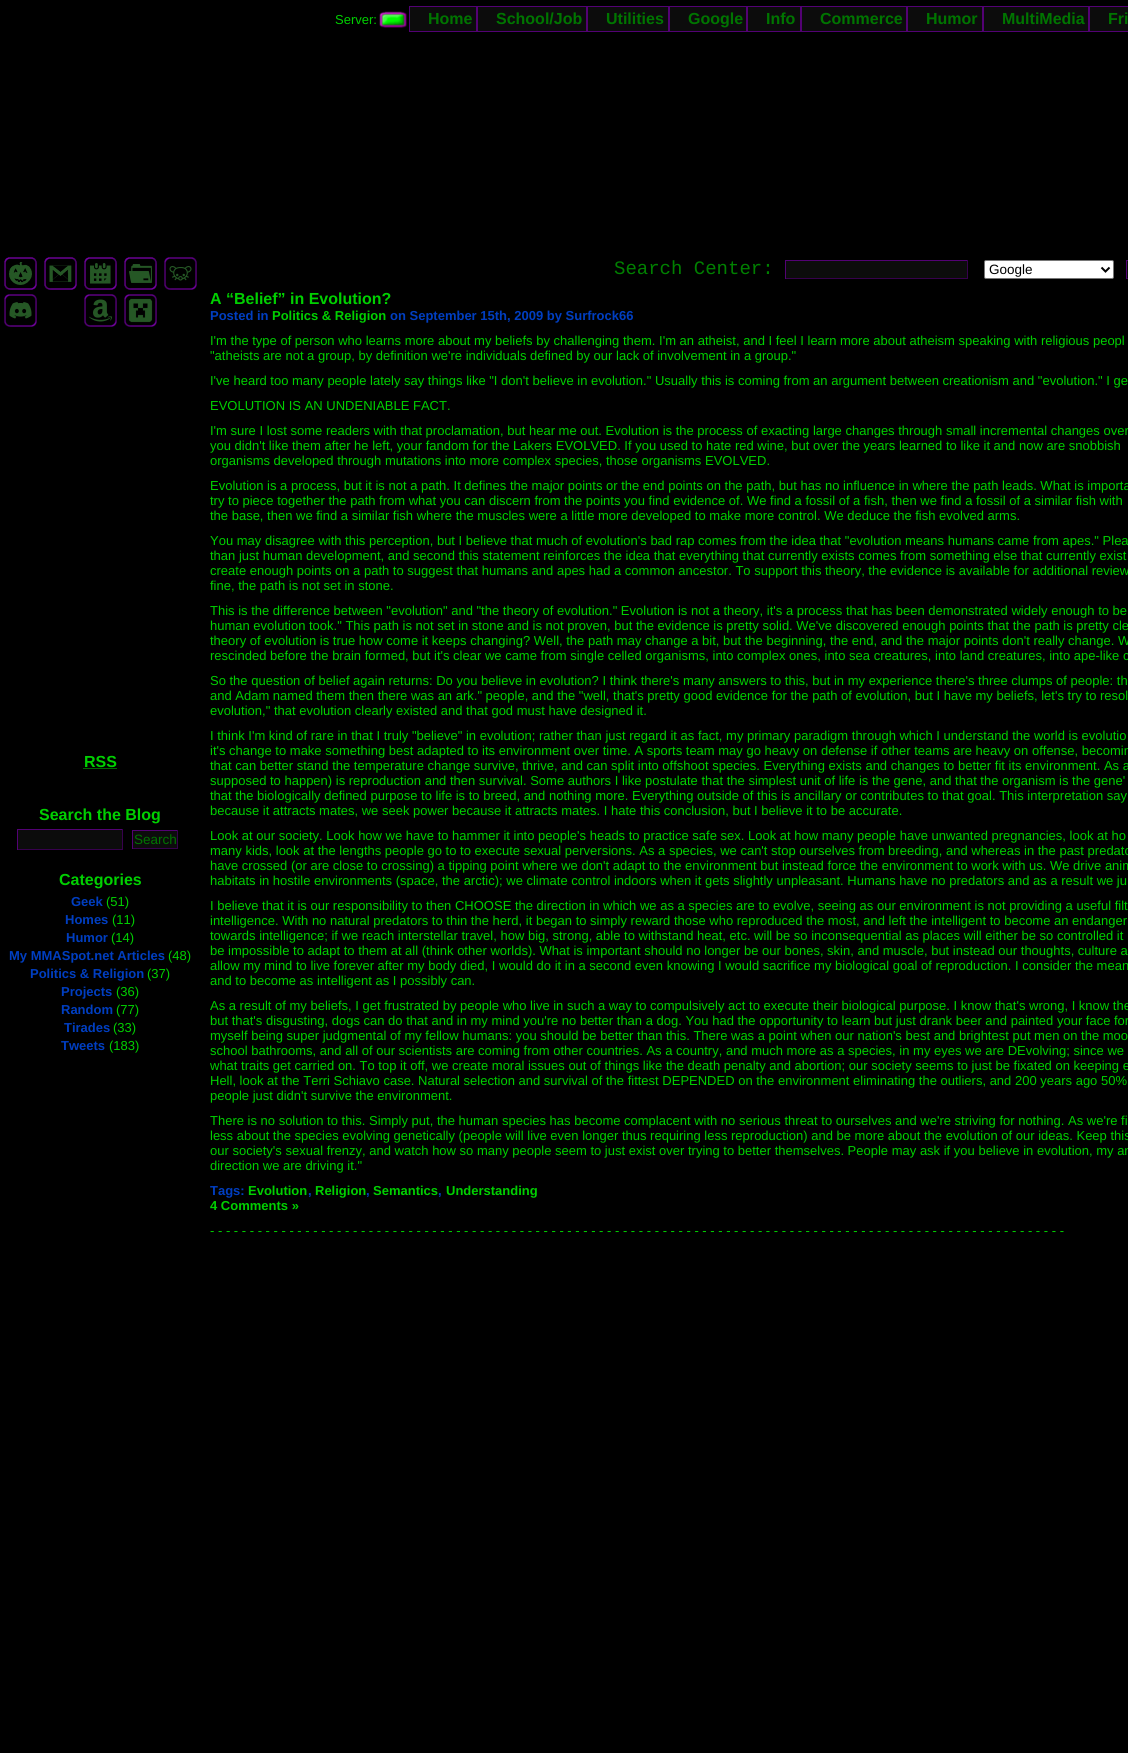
#include <cairo.h>
#include <math.h>
#include <stddef.h>

typedef struct { double x, y; const char *s; } line_t;
typedef struct { double x, y, w, h; unsigned color; } box_t;

static void ink(cairo_t *ctx, unsigned color) {
    cairo_set_source_rgb(ctx, (color >> 16) / 255.0, (color >> 8 & 255) / 255.0, (color & 255) / 255.0);
}

static void round_path(cairo_t *ctx, double x, double y, double w, double h, double r) {
    cairo_new_sub_path(ctx);
    cairo_arc(ctx, x + w - r, y + h - r, r, 0, M_PI / 2);
    cairo_arc(ctx, x + r, y + h - r, r, M_PI / 2, M_PI);
    cairo_arc(ctx, x + r, y + r, r, M_PI, 1.5 * M_PI);
    cairo_arc(ctx, x + w - r, y + r, r, 1.5 * M_PI, 2 * M_PI);
    cairo_close_path(ctx);
}

static void paste(cairo_t *ctx, const char *path, double x, double y, double w, double h) {
    cairo_surface_t *image = cairo_image_surface_create_from_png(path);
    cairo_save(ctx);
    cairo_set_source_surface(ctx, image, x, y);
    cairo_rectangle(ctx, x, y, w, h);
    cairo_fill(ctx);
    cairo_restore(ctx);
    cairo_surface_destroy(image);
}

int main(void) {
    cairo_surface_t *surface = cairo_image_surface_create(CAIRO_FORMAT_RGB24, 1128, 1753);
    cairo_t *ctx = cairo_create(surface);
    cairo_font_options_t *options = cairo_font_options_create();
    cairo_font_options_set_hint_metrics(options, CAIRO_HINT_METRICS_OFF);
    cairo_font_options_set_hint_style(options, CAIRO_HINT_STYLE_NONE);
    cairo_set_font_options(ctx, options);
    cairo_set_miter_limit(ctx, 4);
    ink(ctx, 0x000000);
    cairo_paint(ctx);
    cairo_select_font_face(ctx, "Liberation Sans", CAIRO_FONT_SLANT_NORMAL, CAIRO_FONT_WEIGHT_NORMAL);
    cairo_set_font_size(ctx, 13);
    ink(ctx, 0x00D000);
    cairo_move_to(ctx, 335, 24);
    cairo_show_text(ctx, "Server:");
    paste(ctx, "media/1.png", 379, 11, 28, 17);
    cairo_rectangle(ctx, 409.5, 6.5, 67, 25);
    ink(ctx, 0x530174);
    cairo_set_line_width(ctx, 1);
    cairo_stroke(ctx);
    ink(ctx, 0x0C0C0C);
    cairo_rectangle(ctx, 410, 7, 66, 24);
    cairo_fill(ctx);
    cairo_select_font_face(ctx, "Liberation Sans", CAIRO_FONT_SLANT_NORMAL, CAIRO_FONT_WEIGHT_BOLD);
    cairo_set_font_size(ctx, 16);
    ink(ctx, 0x007500);
    cairo_move_to(ctx, 428, 24);
    cairo_show_text(ctx, "Home");
    cairo_rectangle(ctx, 477.5, 6.5, 109, 25);
    ink(ctx, 0x530174);
    cairo_stroke(ctx);
    ink(ctx, 0x0C0C0C);
    cairo_rectangle(ctx, 478, 7, 108, 24);
    cairo_fill(ctx);
    ink(ctx, 0x007500);
    cairo_move_to(ctx, 496, 24);
    cairo_show_text(ctx, "School/Job");
    cairo_rectangle(ctx, 587.5, 6.5, 81, 25);
    ink(ctx, 0x530174);
    cairo_stroke(ctx);
    ink(ctx, 0x0C0C0C);
    cairo_rectangle(ctx, 588, 7, 80, 24);
    cairo_fill(ctx);
    ink(ctx, 0x007500);
    cairo_move_to(ctx, 606, 24);
    cairo_show_text(ctx, "Utilities");
    cairo_rectangle(ctx, 669.5, 6.5, 77, 25);
    ink(ctx, 0x530174);
    cairo_stroke(ctx);
    ink(ctx, 0x0C0C0C);
    cairo_rectangle(ctx, 670, 7, 76, 24);
    cairo_fill(ctx);
    ink(ctx, 0x007500);
    cairo_move_to(ctx, 688, 24);
    cairo_show_text(ctx, "Google");
    cairo_rectangle(ctx, 747.5, 6.5, 53, 25);
    ink(ctx, 0x530174);
    cairo_stroke(ctx);
    ink(ctx, 0x0C0C0C);
    cairo_rectangle(ctx, 748, 7, 52, 24);
    cairo_fill(ctx);
    ink(ctx, 0x007500);
    cairo_move_to(ctx, 766, 24);
    cairo_show_text(ctx, "Info");
    cairo_rectangle(ctx, 801.5, 6.5, 105, 25);
    ink(ctx, 0x530174);
    cairo_stroke(ctx);
    ink(ctx, 0x0C0C0C);
    cairo_rectangle(ctx, 802, 7, 104, 24);
    cairo_fill(ctx);
    ink(ctx, 0x007500);
    cairo_move_to(ctx, 820, 24);
    cairo_show_text(ctx, "Commerce");
    cairo_rectangle(ctx, 907.5, 6.5, 75, 25);
    ink(ctx, 0x530174);
    cairo_stroke(ctx);
    ink(ctx, 0x0C0C0C);
    cairo_rectangle(ctx, 908, 7, 74, 24);
    cairo_fill(ctx);
    ink(ctx, 0x007500);
    cairo_move_to(ctx, 926, 24);
    cairo_show_text(ctx, "Humor");
    cairo_rectangle(ctx, 983.5, 6.5, 105, 25);
    ink(ctx, 0x530174);
    cairo_stroke(ctx);
    ink(ctx, 0x0C0C0C);
    cairo_rectangle(ctx, 984, 7, 104, 24);
    cairo_fill(ctx);
    ink(ctx, 0x007500);
    cairo_move_to(ctx, 1002, 24);
    cairo_show_text(ctx, "MultiMedia");
    cairo_rectangle(ctx, 1089.5, 6.5, 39, 25);
    ink(ctx, 0x530174);
    cairo_stroke(ctx);
    ink(ctx, 0x0C0C0C);
    cairo_rectangle(ctx, 1090, 7, 38, 24);
    cairo_fill(ctx);
    ink(ctx, 0x007500);
    cairo_move_to(ctx, 1108, 24);
    cairo_show_text(ctx, "Fri");
    paste(ctx, "media/2.png", 4, 257, 33, 33);
    paste(ctx, "media/3.png", 44, 257, 33, 33);
    paste(ctx, "media/4.png", 84, 257, 33, 33);
    paste(ctx, "media/5.png", 124, 257, 33, 33);
    paste(ctx, "media/6.png", 164, 257, 33, 33);
    paste(ctx, "media/7.png", 4, 294, 33, 33);
    paste(ctx, "media/8.png", 84, 294, 33, 33);
    paste(ctx, "media/9.png", 124, 294, 33, 33);
    ink(ctx, 0x00D000);
    cairo_move_to(ctx, 84, 767);
    cairo_show_text(ctx, "RSS");
    cairo_new_path(ctx);
    cairo_move_to(ctx, 83.5, 768.5);
    cairo_line_to(ctx, 116.5, 768.5);
    cairo_set_dash(ctx, (double[]){1, 1}, 2, 0);
    cairo_stroke(ctx);
    cairo_move_to(ctx, 39, 820);
    cairo_show_text(ctx, "Search the Blog");
    {
        static const box_t items[] = {
            {18, 830, 104, 19, 0x0C0C0C},
            {17, 829, 106, 1, 0x530174},
            {122, 829, 1, 21, 0x37014D},
            {17, 849, 106, 1, 0x37014D},
            {17, 829, 1, 21, 0x530174},
            {133, 831, 44, 17, 0x0C0C0C},
            {132, 830, 46, 1, 0x530174},
            {177, 830, 1, 19, 0x37014D},
            {132, 848, 46, 1, 0x37014D},
            {132, 830, 1, 19, 0x530174},
        };
        for (size_t i = 0; i < sizeof items / sizeof *items; i++) {
            ink(ctx, items[i].color);
            cairo_rectangle(ctx, items[i].x, items[i].y, items[i].w, items[i].h);
            cairo_fill(ctx);
        }
    }
    cairo_select_font_face(ctx, "Liberation Sans", CAIRO_FONT_SLANT_NORMAL, CAIRO_FONT_WEIGHT_NORMAL);
    cairo_set_font_size(ctx, 13.5);
    ink(ctx, 0x007500);
    cairo_move_to(ctx, 134, 844);
    cairo_show_text(ctx, "Search");
    cairo_select_font_face(ctx, "Liberation Sans", CAIRO_FONT_SLANT_NORMAL, CAIRO_FONT_WEIGHT_BOLD);
    cairo_set_font_size(ctx, 16);
    ink(ctx, 0x00D000);
    cairo_move_to(ctx, 59, 885);
    cairo_show_text(ctx, "Categories");
    cairo_set_font_size(ctx, 13);
    ink(ctx, 0x003EC1);
    cairo_move_to(ctx, 71, 906);
    cairo_show_text(ctx, "Geek");
    cairo_select_font_face(ctx, "Liberation Sans", CAIRO_FONT_SLANT_NORMAL, CAIRO_FONT_WEIGHT_NORMAL);
    ink(ctx, 0x00D000);
    cairo_move_to(ctx, 106, 906);
    cairo_show_text(ctx, "(51)");
    cairo_select_font_face(ctx, "Liberation Sans", CAIRO_FONT_SLANT_NORMAL, CAIRO_FONT_WEIGHT_BOLD);
    ink(ctx, 0x003EC1);
    cairo_move_to(ctx, 65, 924);
    cairo_show_text(ctx, "Homes");
    cairo_select_font_face(ctx, "Liberation Sans", CAIRO_FONT_SLANT_NORMAL, CAIRO_FONT_WEIGHT_NORMAL);
    ink(ctx, 0x00D000);
    cairo_move_to(ctx, 112, 924);
    cairo_show_text(ctx, "(11)");
    cairo_select_font_face(ctx, "Liberation Sans", CAIRO_FONT_SLANT_NORMAL, CAIRO_FONT_WEIGHT_BOLD);
    ink(ctx, 0x003EC1);
    cairo_move_to(ctx, 66, 942);
    cairo_show_text(ctx, "Humor");
    cairo_select_font_face(ctx, "Liberation Sans", CAIRO_FONT_SLANT_NORMAL, CAIRO_FONT_WEIGHT_NORMAL);
    ink(ctx, 0x00D000);
    cairo_move_to(ctx, 111, 942);
    cairo_show_text(ctx, "(14)");
    cairo_select_font_face(ctx, "Liberation Sans", CAIRO_FONT_SLANT_NORMAL, CAIRO_FONT_WEIGHT_BOLD);
    ink(ctx, 0x003EC1);
    cairo_move_to(ctx, 9, 960);
    cairo_show_text(ctx, "My MMASpot.net Articles");
    cairo_select_font_face(ctx, "Liberation Sans", CAIRO_FONT_SLANT_NORMAL, CAIRO_FONT_WEIGHT_NORMAL);
    ink(ctx, 0x00D000);
    cairo_move_to(ctx, 168, 960);
    cairo_show_text(ctx, "(48)");
    cairo_select_font_face(ctx, "Liberation Sans", CAIRO_FONT_SLANT_NORMAL, CAIRO_FONT_WEIGHT_BOLD);
    ink(ctx, 0x003EC1);
    cairo_move_to(ctx, 30, 978);
    cairo_show_text(ctx, "Politics & Religion");
    cairo_select_font_face(ctx, "Liberation Sans", CAIRO_FONT_SLANT_NORMAL, CAIRO_FONT_WEIGHT_NORMAL);
    ink(ctx, 0x00D000);
    cairo_move_to(ctx, 147, 978);
    cairo_show_text(ctx, "(37)");
    cairo_select_font_face(ctx, "Liberation Sans", CAIRO_FONT_SLANT_NORMAL, CAIRO_FONT_WEIGHT_BOLD);
    ink(ctx, 0x003EC1);
    cairo_move_to(ctx, 61, 996);
    cairo_show_text(ctx, "Projects");
    cairo_select_font_face(ctx, "Liberation Sans", CAIRO_FONT_SLANT_NORMAL, CAIRO_FONT_WEIGHT_NORMAL);
    ink(ctx, 0x00D000);
    cairo_move_to(ctx, 116, 996);
    cairo_show_text(ctx, "(36)");
    cairo_select_font_face(ctx, "Liberation Sans", CAIRO_FONT_SLANT_NORMAL, CAIRO_FONT_WEIGHT_BOLD);
    ink(ctx, 0x003EC1);
    cairo_move_to(ctx, 61, 1014);
    cairo_show_text(ctx, "Random");
    cairo_select_font_face(ctx, "Liberation Sans", CAIRO_FONT_SLANT_NORMAL, CAIRO_FONT_WEIGHT_NORMAL);
    ink(ctx, 0x00D000);
    cairo_move_to(ctx, 116, 1014);
    cairo_show_text(ctx, "(77)");
    cairo_select_font_face(ctx, "Liberation Sans", CAIRO_FONT_SLANT_NORMAL, CAIRO_FONT_WEIGHT_BOLD);
    ink(ctx, 0x003EC1);
    cairo_move_to(ctx, 64, 1032);
    cairo_show_text(ctx, "Tirades");
    cairo_select_font_face(ctx, "Liberation Sans", CAIRO_FONT_SLANT_NORMAL, CAIRO_FONT_WEIGHT_NORMAL);
    ink(ctx, 0x00D000);
    cairo_move_to(ctx, 113, 1032);
    cairo_show_text(ctx, "(33)");
    cairo_select_font_face(ctx, "Liberation Sans", CAIRO_FONT_SLANT_NORMAL, CAIRO_FONT_WEIGHT_BOLD);
    ink(ctx, 0x003EC1);
    cairo_move_to(ctx, 61, 1050);
    cairo_show_text(ctx, "Tweets");
    cairo_select_font_face(ctx, "Liberation Sans", CAIRO_FONT_SLANT_NORMAL, CAIRO_FONT_WEIGHT_NORMAL);
    ink(ctx, 0x00D000);
    cairo_move_to(ctx, 109, 1050);
    cairo_show_text(ctx, "(183)");
    cairo_select_font_face(ctx, "Liberation Mono", CAIRO_FONT_SLANT_NORMAL, CAIRO_FONT_WEIGHT_NORMAL);
    cairo_set_font_size(ctx, 19);
    ink(ctx, 0x008000);
    cairo_move_to(ctx, 614, 274);
    cairo_show_text(ctx, "Search Center:");
    {
        static const box_t items[] = {
            {786, 261, 181, 17, 0x0C0C0C},
            {785, 260, 183, 1, 0x530174},
            {967, 260, 1, 19, 0x37014D},
            {785, 278, 183, 1, 0x37014D},
            {785, 260, 1, 19, 0x530174},
        };
        for (size_t i = 0; i < sizeof items / sizeof *items; i++) {
            ink(ctx, items[i].color);
            cairo_rectangle(ctx, items[i].x, items[i].y, items[i].w, items[i].h);
            cairo_fill(ctx);
        }
    }
    ink(ctx, 0xFFFFFF);
    round_path(ctx, 984.5, 260.5, 129, 18, 1.5);
    cairo_fill_preserve(ctx);
    ink(ctx, 0x767676);
    cairo_set_dash(ctx, NULL, 0, 0);
    cairo_stroke(ctx);
    cairo_new_path(ctx);
    cairo_move_to(ctx, 1101.5, 267.5);
    cairo_line_to(ctx, 1105.5, 271.5);
    cairo_line_to(ctx, 1109.5, 267.5);
    ink(ctx, 0x000000);
    cairo_set_line_width(ctx, 2);
    cairo_stroke(ctx);
    cairo_select_font_face(ctx, "Liberation Sans", CAIRO_FONT_SLANT_NORMAL, CAIRO_FONT_WEIGHT_NORMAL);
    cairo_set_font_size(ctx, 13.5);
    cairo_move_to(ctx, 989, 274);
    cairo_show_text(ctx, "Google");
    {
        static const box_t items[] = {
            {1127, 260, 1, 19, 0x0C0C0C},
            {1126, 260, 2, 1, 0x530174},
            {1126, 278, 2, 1, 0x37014D},
            {1126, 260, 1, 19, 0x530174},
        };
        for (size_t i = 0; i < sizeof items / sizeof *items; i++) {
            ink(ctx, items[i].color);
            cairo_rectangle(ctx, items[i].x, items[i].y, items[i].w, items[i].h);
            cairo_fill(ctx);
        }
    }
    cairo_select_font_face(ctx, "Liberation Sans", CAIRO_FONT_SLANT_NORMAL, CAIRO_FONT_WEIGHT_BOLD);
    cairo_set_font_size(ctx, 16);
    ink(ctx, 0x00D000);
    cairo_move_to(ctx, 210, 304);
    cairo_show_text(ctx, "A “Belief” in Evolution?");
    cairo_set_font_size(ctx, 13);
    ink(ctx, 0x003EC1);
    cairo_move_to(ctx, 210, 320);
    cairo_show_text(ctx, "Posted in");
    ink(ctx, 0x00D000);
    cairo_move_to(ctx, 272, 320);
    cairo_show_text(ctx, "Politics & Religion");
    ink(ctx, 0x003EC1);
    cairo_move_to(ctx, 390, 320);
    cairo_show_text(ctx, "on September 15th, 2009 by Surfrock66");
    cairo_select_font_face(ctx, "Liberation Sans", CAIRO_FONT_SLANT_NORMAL, CAIRO_FONT_WEIGHT_NORMAL);
    ink(ctx, 0x00D000);
    {
        static const line_t items[] = {
            {210, 345, "I'm the type of person who learns more about my beliefs by challenging them. I'm an atheist, and I feel I learn more about atheism speaking with religious peopl"},
            {210, 360, "\"atheists are not a group, by definition we're individuals defined by our lack of involvement in a group.\""},
            {210, 385, "I've heard too many people lately say things like \"I don't believe in evolution.\" Usually this is coming from an argument between creationism and \"evolution.\" I ge"},
            {210, 410, "EVOLUTION IS AN UNDENIABLE FACT."},
            {210, 435, "I'm sure I lost some readers with that proclamation, but hear me out. Evolution is the process of exacting large changes through small incremental changes over"},
            {210, 450, "you didn't like them after he left, your fandom for the Lakers EVOLVED. If you used to hate red wine, but over the years learned to like it and now are snobbish"},
            {210, 465, "organisms developed through mutations into more complex species, those organisms EVOLVED."},
            {210, 490, "Evolution is a process, but it is not a path. It defines the major points or the end points on the path, but has no influence in where the path leads. What is importa"},
            {210, 505, "try to piece together the path from what you can discern from the points you find evidence of. We find a fossil of a fish, then we find a fossil of a similar fish with"},
            {210, 520, "the base, then we find a similar fish where the muscles were a little more developed to make more control. We deduce the fish evolved arms."},
            {210, 545, "You may disagree with this perception, but I believe that much of evolution's bad rap comes from the idea that \"evolution means humans came from apes.\" Plea"},
            {210, 560, "than just human development, and second this statement reinforces the idea that everything that currently exists comes from something else that currently exist"},
            {210, 575, "create enough points on a path to suggest that humans and apes had a common ancestor. To support this theory, the evidence is available for additional review"},
            {210, 590, "fine, the path is not set in stone."},
            {210, 615, "This is the difference between \"evolution\" and \"the theory of evolution.\" Evolution is not a theory, it's a process that has been demonstrated widely enough to be"},
            {210, 630, "human evolution took.\" This path is not set in stone and is not proven, but the evidence is pretty solid. We've discovered enough points that the path is pretty cle"},
            {210, 645, "theory of evolution is true how come it keeps changing? Well, the path may change a bit, but the beginning, the end, and the major points don't really change. W"},
            {210, 660, "rescinded before the brain formed, but it's clear we came from single celled organisms, into complex ones, into sea creatures, into land creatures, into ape-like c"},
            {210, 685, "So the question of belief again returns: Do you believe in evolution? I think there's many answers to this, but in my experience there's three clumps of people: th"},
            {210, 700, "and Adam named them then there was an ark.\" people, and the \"well, that's pretty good evidence for the path of evolution, but I have my beliefs, let's try to resol"},
            {210, 715, "evolution,\" that evolution clearly existed and that god must have designed it."},
            {210, 740, "I think I'm kind of rare in that I truly \"believe\" in evolution; rather than just regard it as fact, my primary paradigm through which I understand the world is evolutio"},
            {210, 755, "it's change to make something best adapted to its environment over time. A sports team may go heavy on defense if other teams are heavy on offense, becomin"},
            {210, 770, "that can better stand the temperature change survive, thrive, and can split into offshoot species. Everything exists and changes to better fit its environment. As a"},
            {210, 785, "supposed to happen) is reproduction and then survival. Some authors I like postulate that the simplest unit of life is the gene, and that the organism is the gene'"},
            {210, 800, "that the biologically defined purpose to life is to breed, and nothing more. Everything outside of this is ancillary or contributes to that goal. This interpretation say"},
            {210, 815, "because it attracts mates, we seek power because it attracts mates. I hate this conclusion, but I believe it to be accurate."},
            {210, 840, "Look at our society. Look how we have to hammer it into people's heads to practice safe sex. Look at how many people have unwanted pregnancies, look at ho"},
            {210, 855, "many kids, look at the lengths people go to to execute sexual perversions. As a species, we can't stop ourselves from breeding, and whereas in the past predato"},
            {210, 870, "have crossed (or are close to crossing) a tipping point where we don't adapt to the environment but instead force the environment to work with us. We drive anim"},
            {210, 885, "habitats in hostile environments (space, the arctic); we climate control indoors when it gets slightly unpleasant. Humans have no predators and as a result we ju"},
            {210, 910, "I believe that it is our responsibility to then CHOOSE the direction in which we as a species are to evolve, seeing as our environment is not providing a useful filt"},
            {210, 925, "intelligence. With no natural predators to thin the herd, it began to simply reward those who reproduced the most, and left the intelligent to become an endanger"},
            {210, 940, "towards intelligence; if we reach interstellar travel, how big, strong, able to withstand heat, etc. will be so inconsequential as places will either be so controlled it"},
            {210, 955, "be impossible to adapt to them at all (think other worlds). What is important should no longer be our bones, skin, and muscle, but instead our thoughts, culture a"},
            {210, 970, "allow my mind to live forever after my body died, I would do it in a second even knowing I would sacrifice my biological goal of reproduction. I consider the mean"},
            {210, 985, "and to become as intelligent as I possibly can."},
            {210, 1010, "As a result of my beliefs, I get frustrated by people who live in such a way to compulsively act to execute their biological purpose. I know that's wrong, I know the"},
            {210, 1025, "but that's disgusting, dogs can do that and in my mind you're no better than a dog. You had the opportunity to learn but just drank beer and painted your face for"},
            {210, 1040, "myself being super judgmental of my fellow humans: you should be better than this. There was a point when our nation's best and brightest put men on the moo"},
            {210, 1055, "school bathrooms, and all of our scientists are coming from other countries. As a country, and much more as a species, in my eyes we are DEvolving; since we"},
            {210, 1070, "what traits get carried on. To top it off, we create moral issues out of things like the death penalty and abortion; our society seems to just be fixated on keeping e"},
            {210, 1085, "Hell, look at the Terri Schiavo case. Natural selection and survival of the fittest DEPENDED on the environment eliminating the outliers, and 200 years ago 50%"},
            {210, 1100, "people just didn't survive the environment."},
            {210, 1125, "There is no solution to this. Simply put, the human species has become complacent with no serious threat to ourselves and we're striving for nothing. As we're fi"},
            {210, 1140, "less about the species evolving genetically (people will live even longer thus requiring less reproduction) and be more about the evolution of our ideas. Keep this"},
            {210, 1155, "our society's sexual frenzy, and watch how so many people seem to just exist over trying to better themselves. People may ask if you believe in evolution, my an"},
            {210, 1170, "direction we are driving it.\""},
        };
        for (size_t i = 0; i < sizeof items / sizeof *items; i++) {
            cairo_move_to(ctx, items[i].x, items[i].y);
            cairo_show_text(ctx, items[i].s);
        }
    }
    cairo_select_font_face(ctx, "Liberation Sans", CAIRO_FONT_SLANT_NORMAL, CAIRO_FONT_WEIGHT_BOLD);
    ink(ctx, 0x003EC1);
    cairo_move_to(ctx, 210, 1195);
    cairo_show_text(ctx, "Tags:");
    ink(ctx, 0x00D000);
    cairo_move_to(ctx, 248, 1195);
    cairo_show_text(ctx, "Evolution");
    ink(ctx, 0x003EC1);
    cairo_move_to(ctx, 308, 1195);
    cairo_show_text(ctx, ",");
    ink(ctx, 0x00D000);
    cairo_move_to(ctx, 315, 1195);
    cairo_show_text(ctx, "Religion");
    ink(ctx, 0x003EC1);
    cairo_move_to(ctx, 366, 1195);
    cairo_show_text(ctx, ",");
    ink(ctx, 0x00D000);
    cairo_move_to(ctx, 373, 1195);
    cairo_show_text(ctx, "Semantics");
    ink(ctx, 0x003EC1);
    cairo_move_to(ctx, 438, 1195);
    cairo_show_text(ctx, ",");
    ink(ctx, 0x00D000);
    cairo_move_to(ctx, 446, 1195);
    cairo_show_text(ctx, "Understanding");
    cairo_move_to(ctx, 210, 1210);
    cairo_show_text(ctx, "4 Comments »");
    cairo_select_font_face(ctx, "Liberation Sans", CAIRO_FONT_SLANT_NORMAL, CAIRO_FONT_WEIGHT_NORMAL);
    cairo_move_to(ctx, 210, 1235);
    cairo_show_text(ctx, "- - - - - - - - - - - - - - - - - - - - - - - - - - - - - - - - - - - - - - - - - - - - - - - - - - - - - - - - - - - - - - - - - - - - - - - - - - - - - - - - - - - - - - - - - - - - - - - - - - - - - - - - - - - -");
    cairo_surface_write_to_png(surface, "image.png");
    cairo_font_options_destroy(options);
    cairo_destroy(ctx);
    cairo_surface_destroy(surface);
    return 0;
}
